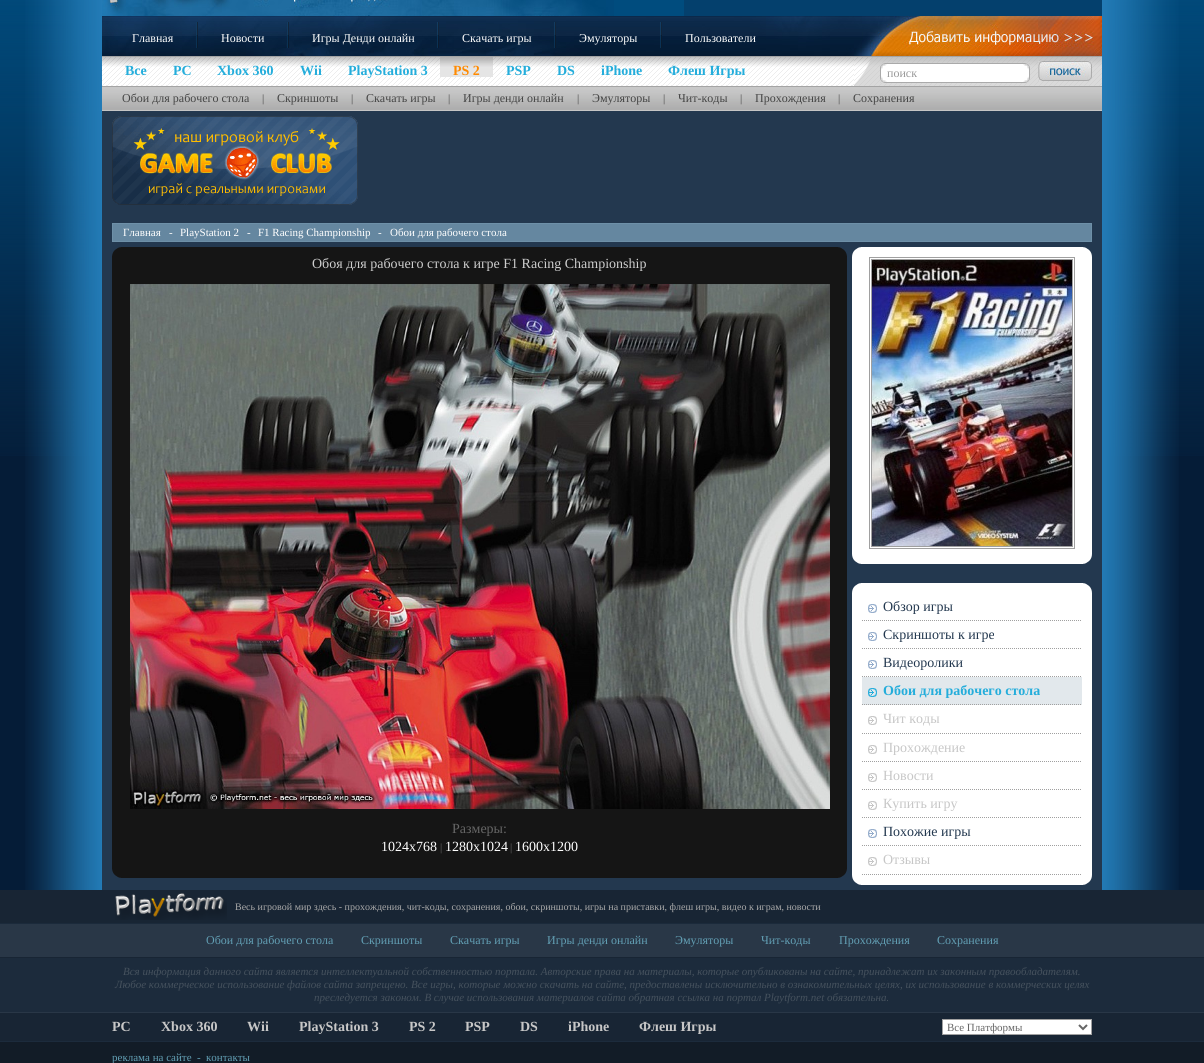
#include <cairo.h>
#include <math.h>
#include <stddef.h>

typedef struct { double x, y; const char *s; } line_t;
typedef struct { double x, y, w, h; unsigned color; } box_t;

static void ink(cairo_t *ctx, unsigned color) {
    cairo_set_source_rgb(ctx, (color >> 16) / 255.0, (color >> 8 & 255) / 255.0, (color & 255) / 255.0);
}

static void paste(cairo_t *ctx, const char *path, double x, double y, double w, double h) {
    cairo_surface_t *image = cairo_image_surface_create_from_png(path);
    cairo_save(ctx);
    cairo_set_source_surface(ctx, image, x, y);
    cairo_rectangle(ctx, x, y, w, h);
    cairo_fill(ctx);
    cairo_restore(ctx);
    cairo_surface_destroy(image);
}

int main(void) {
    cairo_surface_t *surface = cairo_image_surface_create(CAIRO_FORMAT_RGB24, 1204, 1063);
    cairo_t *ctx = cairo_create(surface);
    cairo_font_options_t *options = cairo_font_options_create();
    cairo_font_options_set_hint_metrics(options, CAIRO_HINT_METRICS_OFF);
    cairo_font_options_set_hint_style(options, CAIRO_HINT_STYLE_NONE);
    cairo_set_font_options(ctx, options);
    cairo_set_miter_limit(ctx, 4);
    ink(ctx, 0x051C37);
    cairo_paint(ctx);
    paste(ctx, "media/1.png", 0, 0, 1204, 456);
    paste(ctx, "media/2.png", 25, 0, 77, 890);
    ink(ctx, 0x23384F);
    cairo_rectangle(ctx, 102, 111, 1000, 779);
    cairo_fill(ctx);
    ink(ctx, 0x004C7E);
    cairo_rectangle(ctx, 614, 0, 70, 16);
    cairo_fill(ctx);
    paste(ctx, "media/3.png", 102, 0, 512, 16);
    ink(ctx, 0x04406D);
    cairo_rectangle(ctx, 684, 0, 418, 16);
    cairo_fill(ctx);
    paste(ctx, "media/4.png", 102, 16, 752, 40);
    cairo_select_font_face(ctx, "Liberation Serif", CAIRO_FONT_SLANT_NORMAL, CAIRO_FONT_WEIGHT_NORMAL);
    cairo_set_font_size(ctx, 12);
    ink(ctx, 0xFFFFFF);
    cairo_move_to(ctx, 132, 42);
    cairo_show_text(ctx, "Главная");
    paste(ctx, "media/5.png", 196, 22, 2, 26);
    cairo_move_to(ctx, 221, 42);
    cairo_show_text(ctx, "Новости");
    paste(ctx, "media/5.png", 287, 22, 2, 26);
    cairo_move_to(ctx, 312, 42);
    cairo_show_text(ctx, "Игры Денди онлайн");
    paste(ctx, "media/5.png", 437, 22, 2, 26);
    cairo_move_to(ctx, 462, 42);
    cairo_show_text(ctx, "Скачать игры");
    paste(ctx, "media/5.png", 554, 22, 2, 26);
    cairo_move_to(ctx, 579, 42);
    cairo_show_text(ctx, "Эмуляторы");
    paste(ctx, "media/5.png", 660, 22, 2, 26);
    cairo_move_to(ctx, 685, 42);
    cairo_show_text(ctx, "Пользователи");
    paste(ctx, "media/6.png", 854, 16, 248, 40);
    paste(ctx, "media/7.png", 102, 56, 752, 31);
    cairo_select_font_face(ctx, "Liberation Serif", CAIRO_FONT_SLANT_NORMAL, CAIRO_FONT_WEIGHT_BOLD);
    cairo_set_font_size(ctx, 14);
    ink(ctx, 0x24ADDB);
    {
        static const line_t items[] = {
            {125, 75, "Все"},
            {173, 75, "PC"},
            {217, 75, "Xbox 360"},
            {300, 75, "Wii"},
            {348, 75, "PlayStation 3"},
        };
        for (size_t i = 0; i < sizeof items / sizeof *items; i++) {
            cairo_move_to(ctx, items[i].x, items[i].y);
            cairo_show_text(ctx, items[i].s);
        }
    }
    paste(ctx, "media/8.png", 440, 56, 53, 21);
    ink(ctx, 0xFF8A00);
    cairo_move_to(ctx, 453, 75);
    cairo_show_text(ctx, "PS 2");
    ink(ctx, 0x24ADDB);
    {
        static const line_t items[] = {
            {506, 75, "PSP"},
            {557, 75, "DS"},
            {601, 75, "iPhone"},
            {668, 75, "Флеш Игры"},
        };
        for (size_t i = 0; i < sizeof items / sizeof *items; i++) {
            cairo_move_to(ctx, items[i].x, items[i].y);
            cairo_show_text(ctx, items[i].s);
        }
    }
    paste(ctx, "media/9.png", 854, 56, 248, 31);
    paste(ctx, "media/10.png", 880, 63, 150, 20);
    cairo_select_font_face(ctx, "Liberation Serif", CAIRO_FONT_SLANT_NORMAL, CAIRO_FONT_WEIGHT_NORMAL);
    cairo_set_font_size(ctx, 12);
    ink(ctx, 0x999999);
    cairo_move_to(ctx, 887, 77);
    cairo_show_text(ctx, "поиск");
    paste(ctx, "media/11.png", 1038, 61, 54, 20);
    paste(ctx, "media/12.png", 102, 87, 1000, 24);
    ink(ctx, 0x444444);
    cairo_move_to(ctx, 122, 102);
    cairo_show_text(ctx, "Обои для рабочего стола");
    cairo_set_font_size(ctx, 11);
    cairo_move_to(ctx, 262, 102);
    cairo_show_text(ctx, "|");
    cairo_set_font_size(ctx, 12);
    cairo_move_to(ctx, 277, 102);
    cairo_show_text(ctx, "Скриншоты");
    cairo_set_font_size(ctx, 11);
    cairo_move_to(ctx, 351, 102);
    cairo_show_text(ctx, "|");
    cairo_set_font_size(ctx, 12);
    cairo_move_to(ctx, 366, 102);
    cairo_show_text(ctx, "Скачать игры");
    cairo_set_font_size(ctx, 11);
    cairo_move_to(ctx, 448, 102);
    cairo_show_text(ctx, "|");
    cairo_set_font_size(ctx, 12);
    cairo_move_to(ctx, 463, 102);
    cairo_show_text(ctx, "Игры денди онлайн");
    cairo_set_font_size(ctx, 11);
    cairo_move_to(ctx, 577, 102);
    cairo_show_text(ctx, "|");
    cairo_set_font_size(ctx, 12);
    cairo_move_to(ctx, 592, 102);
    cairo_show_text(ctx, "Эмуляторы");
    cairo_set_font_size(ctx, 11);
    cairo_move_to(ctx, 663, 102);
    cairo_show_text(ctx, "|");
    cairo_set_font_size(ctx, 12);
    cairo_move_to(ctx, 678, 102);
    cairo_show_text(ctx, "Чит-коды");
    cairo_set_font_size(ctx, 11);
    cairo_move_to(ctx, 740, 102);
    cairo_show_text(ctx, "|");
    cairo_set_font_size(ctx, 12);
    cairo_move_to(ctx, 755, 102);
    cairo_show_text(ctx, "Прохождения");
    cairo_set_font_size(ctx, 11);
    cairo_move_to(ctx, 838, 102);
    cairo_show_text(ctx, "|");
    cairo_set_font_size(ctx, 12);
    cairo_move_to(ctx, 853, 102);
    cairo_show_text(ctx, "Сохранения");
    paste(ctx, "media/13.png", 112, 116, 246, 89);
    ink(ctx, 0x6587A0);
    cairo_rectangle(ctx, 112.5, 223.5, 979, 18);
    cairo_fill_preserve(ctx);
    ink(ctx, 0x6E90A8);
    cairo_set_line_width(ctx, 1);
    cairo_stroke(ctx);
    cairo_set_font_size(ctx, 11);
    ink(ctx, 0xFFFFFF);
    {
        static const line_t items[] = {
            {123, 236, "Главная"},
            {169, 236, "-"},
            {180, 236, "PlayStation 2"},
            {247, 236, "-"},
            {258, 236, "F1 Racing Championship"},
            {378, 236, "-"},
            {390, 236, "Обои для рабочего стола"},
        };
        for (size_t i = 0; i < sizeof items / sizeof *items; i++) {
            cairo_move_to(ctx, items[i].x, items[i].y);
            cairo_show_text(ctx, items[i].s);
        }
    }
    ink(ctx, 0x151515);
    cairo_rectangle(ctx, 112, 247, 735, 631);
    cairo_fill(ctx);
    paste(ctx, "media/14.png", 112, 247, 9, 9);
    paste(ctx, "media/15.png", 838, 247, 9, 9);
    cairo_set_font_size(ctx, 14);
    ink(ctx, 0xCECECE);
    cairo_move_to(ctx, 312, 268);
    cairo_show_text(ctx, "Обоя для рабочего стола к игре F1 Racing Championship");
    paste(ctx, "media/16.png", 130, 284, 700, 525);
    ink(ctx, 0x666666);
    cairo_move_to(ctx, 452, 833);
    cairo_show_text(ctx, "Размеры:");
    ink(ctx, 0xFFFFFF);
    cairo_move_to(ctx, 381, 851);
    cairo_show_text(ctx, "1024x768");
    cairo_set_font_size(ctx, 11);
    ink(ctx, 0x666666);
    cairo_move_to(ctx, 440, 851);
    cairo_show_text(ctx, "|");
    cairo_set_font_size(ctx, 14);
    ink(ctx, 0xFFFFFF);
    cairo_move_to(ctx, 445, 851);
    cairo_show_text(ctx, "1280x1024");
    cairo_set_font_size(ctx, 11);
    ink(ctx, 0x666666);
    cairo_move_to(ctx, 510, 851);
    cairo_show_text(ctx, "|");
    cairo_set_font_size(ctx, 14);
    ink(ctx, 0xFFFFFF);
    cairo_move_to(ctx, 515, 851);
    cairo_show_text(ctx, "1600x1200");
    paste(ctx, "media/17.png", 112, 869, 9, 9);
    paste(ctx, "media/18.png", 838, 869, 9, 9);
    cairo_rectangle(ctx, 852, 247, 240, 317);
    cairo_fill(ctx);
    paste(ctx, "media/19.png", 852, 247, 9, 10);
    paste(ctx, "media/20.png", 1083, 247, 9, 10);
    cairo_rectangle(ctx, 869.5, 257.5, 205, 291);
    ink(ctx, 0xA0A0A0);
    cairo_stroke(ctx);
    cairo_rectangle(ctx, 871.5, 259.5, 201, 287);
    cairo_stroke(ctx);
    paste(ctx, "media/21.png", 872, 260, 200, 286);
    paste(ctx, "media/22.png", 852, 554, 9, 10);
    paste(ctx, "media/23.png", 1083, 554, 9, 10);
    ink(ctx, 0xFFFFFF);
    cairo_rectangle(ctx, 852, 583, 240, 302);
    cairo_fill(ctx);
    paste(ctx, "media/19.png", 852, 583, 9, 10);
    paste(ctx, "media/20.png", 1083, 583, 9, 10);
    paste(ctx, "media/24.png", 868, 604, 9, 9);
    cairo_new_path(ctx);
    cairo_move_to(ctx, 862, 620.5);
    cairo_line_to(ctx, 1082, 620.5);
    ink(ctx, 0xA0A0A0);
    cairo_set_dash(ctx, (double[]){1, 1}, 2, 0);
    cairo_stroke(ctx);
    ink(ctx, 0x23384F);
    cairo_move_to(ctx, 883, 611);
    cairo_show_text(ctx, "Обзор игры");
    paste(ctx, "media/24.png", 868, 632, 9, 9);
    cairo_new_path(ctx);
    cairo_move_to(ctx, 862, 648.5);
    cairo_line_to(ctx, 1082, 648.5);
    ink(ctx, 0xA0A0A0);
    cairo_stroke(ctx);
    ink(ctx, 0x23384F);
    cairo_move_to(ctx, 883, 639);
    cairo_show_text(ctx, "Скриншоты к игре");
    paste(ctx, "media/24.png", 868, 660, 9, 9);
    cairo_new_path(ctx);
    cairo_move_to(ctx, 862, 676.5);
    cairo_line_to(ctx, 1082, 676.5);
    ink(ctx, 0xA0A0A0);
    cairo_stroke(ctx);
    ink(ctx, 0x23384F);
    cairo_move_to(ctx, 883, 667);
    cairo_show_text(ctx, "Видеоролики");
    ink(ctx, 0xE2E8EC);
    cairo_rectangle(ctx, 862, 677, 220, 28);
    cairo_fill(ctx);
    paste(ctx, "media/25.png", 868, 688, 9, 9);
    cairo_new_path(ctx);
    cairo_move_to(ctx, 862, 704.5);
    cairo_line_to(ctx, 1082, 704.5);
    ink(ctx, 0xA0A0A0);
    cairo_stroke(ctx);
    cairo_select_font_face(ctx, "Liberation Serif", CAIRO_FONT_SLANT_NORMAL, CAIRO_FONT_WEIGHT_BOLD);
    ink(ctx, 0x24ADDB);
    cairo_move_to(ctx, 883, 695);
    cairo_show_text(ctx, "Обои для рабочего стола");
    paste(ctx, "media/26.png", 868, 716, 9, 9);
    cairo_new_path(ctx);
    cairo_move_to(ctx, 862, 733.5);
    cairo_line_to(ctx, 1082, 733.5);
    ink(ctx, 0xA0A0A0);
    cairo_stroke(ctx);
    cairo_select_font_face(ctx, "Liberation Serif", CAIRO_FONT_SLANT_NORMAL, CAIRO_FONT_WEIGHT_NORMAL);
    ink(ctx, 0xC7C7C7);
    cairo_move_to(ctx, 883, 723);
    cairo_show_text(ctx, "Чит коды");
    paste(ctx, "media/26.png", 868, 745, 9, 9);
    cairo_new_path(ctx);
    cairo_move_to(ctx, 862, 761.5);
    cairo_line_to(ctx, 1082, 761.5);
    ink(ctx, 0xA0A0A0);
    cairo_stroke(ctx);
    ink(ctx, 0xC7C7C7);
    cairo_move_to(ctx, 883, 752);
    cairo_show_text(ctx, "Прохождение");
    paste(ctx, "media/26.png", 868, 773, 9, 9);
    cairo_new_path(ctx);
    cairo_move_to(ctx, 862, 789.5);
    cairo_line_to(ctx, 1082, 789.5);
    ink(ctx, 0xA0A0A0);
    cairo_stroke(ctx);
    ink(ctx, 0xC7C7C7);
    cairo_move_to(ctx, 883, 780);
    cairo_show_text(ctx, "Новости");
    paste(ctx, "media/26.png", 868, 801, 9, 9);
    cairo_new_path(ctx);
    cairo_move_to(ctx, 862, 817.5);
    cairo_line_to(ctx, 1082, 817.5);
    ink(ctx, 0xA0A0A0);
    cairo_stroke(ctx);
    ink(ctx, 0xC7C7C7);
    cairo_move_to(ctx, 883, 808);
    cairo_show_text(ctx, "Купить игру");
    paste(ctx, "media/24.png", 868, 829, 9, 9);
    cairo_new_path(ctx);
    cairo_move_to(ctx, 862, 845.5);
    cairo_line_to(ctx, 1082, 845.5);
    ink(ctx, 0xA0A0A0);
    cairo_stroke(ctx);
    ink(ctx, 0x23384F);
    cairo_move_to(ctx, 883, 836);
    cairo_show_text(ctx, "Похожие игры");
    paste(ctx, "media/26.png", 868, 857, 9, 9);
    cairo_new_path(ctx);
    cairo_move_to(ctx, 862, 874.5);
    cairo_line_to(ctx, 1082, 874.5);
    ink(ctx, 0xA0A0A0);
    cairo_stroke(ctx);
    ink(ctx, 0xC7C7C7);
    cairo_move_to(ctx, 883, 864);
    cairo_show_text(ctx, "Отзывы");
    paste(ctx, "media/22.png", 852, 875, 9, 10);
    paste(ctx, "media/23.png", 1083, 875, 9, 10);
    paste(ctx, "media/27.png", 1102, 0, 77, 890);
    ink(ctx, 0x182534);
    cairo_rectangle(ctx, 0, 890, 1204, 33);
    cairo_fill(ctx);
    paste(ctx, "media/28.png", 115, 893, 112, 27);
    cairo_set_font_size(ctx, 10);
    ink(ctx, 0xA9A9A9);
    cairo_move_to(ctx, 235, 910);
    cairo_show_text(ctx, "Весь игровой мир здесь - прохождения, чит-коды, сохранения, обои, скриншоты, игры на приставки, флеш игры, видео к играм, новости");
    {
        static const box_t items[] = {
            {0, 923, 1204, 1, 0x1B2A3B},
            {0, 957, 1204, 1, 0x182534},
            {0, 924, 1204, 33, 0x293747},
        };
        for (size_t i = 0; i < sizeof items / sizeof *items; i++) {
            ink(ctx, items[i].color);
            cairo_rectangle(ctx, items[i].x, items[i].y, items[i].w, items[i].h);
            cairo_fill(ctx);
        }
    }
    cairo_set_font_size(ctx, 12);
    ink(ctx, 0x629FB4);
    {
        static const line_t items[] = {
            {206, 944, "Обои для рабочего стола"},
            {361, 944, "Скриншоты"},
            {450, 944, "Скачать игры"},
            {547, 944, "Игры денди онлайн"},
            {675, 944, "Эмуляторы"},
            {761, 944, "Чит-коды"},
            {839, 944, "Прохождения"},
            {937, 944, "Сохранения"},
        };
        for (size_t i = 0; i < sizeof items / sizeof *items; i++) {
            cairo_move_to(ctx, items[i].x, items[i].y);
            cairo_show_text(ctx, items[i].s);
        }
    }
    ink(ctx, 0x1C2B3C);
    cairo_rectangle(ctx, 0, 958, 1204, 54);
    cairo_fill(ctx);
    cairo_select_font_face(ctx, "Liberation Serif", CAIRO_FONT_SLANT_ITALIC, CAIRO_FONT_WEIGHT_NORMAL);
    cairo_set_font_size(ctx, 11);
    ink(ctx, 0x45515D);
    {
        static const line_t items[] = {
            {123, 975, "Вся информация данного сайта является интеллектуальной собственностью портала. Авторские права на материалы, которые опубликованы на сайте, принадлежат их законным правообладателям."},
            {115, 988, "Любое коммерческое использование файлов сайта запрещено. Все игры, которые можно скачать на сайте, предоставлены исключительно в ознакомительных целях, их использование в коммерческих целях"},
            {314, 1001, "преследуется законом. В случае использования материалов сайта обратная ссылка на портал Playtform.net обязательна."},
        };
        for (size_t i = 0; i < sizeof items / sizeof *items; i++) {
            cairo_move_to(ctx, items[i].x, items[i].y);
            cairo_show_text(ctx, items[i].s);
        }
    }
    {
        static const box_t items[] = {
            {0, 1012, 1204, 1, 0x293747},
            {0, 1041, 1204, 1, 0x1C2B3C},
            {0, 1013, 1204, 28, 0x182534},
        };
        for (size_t i = 0; i < sizeof items / sizeof *items; i++) {
            ink(ctx, items[i].color);
            cairo_rectangle(ctx, items[i].x, items[i].y, items[i].w, items[i].h);
            cairo_fill(ctx);
        }
    }
    cairo_select_font_face(ctx, "Liberation Serif", CAIRO_FONT_SLANT_NORMAL, CAIRO_FONT_WEIGHT_BOLD);
    cairo_set_font_size(ctx, 14);
    ink(ctx, 0xC7C7C7);
    {
        static const line_t items[] = {
            {112, 1031, "PC"},
            {161, 1031, "Xbox 360"},
            {247, 1031, "Wii"},
            {299, 1031, "PlayStation 3"},
            {409, 1031, "PS 2"},
            {465, 1031, "PSP"},
            {520, 1031, "DS"},
            {568, 1031, "iPhone"},
            {639, 1031, "Флеш Игры"},
        };
        for (size_t i = 0; i < sizeof items / sizeof *items; i++) {
            cairo_move_to(ctx, items[i].x, items[i].y);
            cairo_show_text(ctx, items[i].s);
        }
    }
    ink(ctx, 0xFFFFFF);
    cairo_rectangle(ctx, 942.5, 1019.5, 149, 15);
    cairo_fill_preserve(ctx);
    ink(ctx, 0xA0A0A0);
    cairo_set_dash(ctx, NULL, 0, 0);
    cairo_stroke(ctx);
    cairo_new_path(ctx);
    cairo_move_to(ctx, 1079, 1025);
    cairo_line_to(ctx, 1083, 1029);
    cairo_line_to(ctx, 1087, 1025);
    ink(ctx, 0x666666);
    cairo_set_line_width(ctx, 2);
    cairo_stroke(ctx);
    cairo_select_font_face(ctx, "Liberation Serif", CAIRO_FONT_SLANT_NORMAL, CAIRO_FONT_WEIGHT_NORMAL);
    cairo_set_font_size(ctx, 11);
    cairo_move_to(ctx, 947, 1031);
    cairo_show_text(ctx, "Все Платформы");
    ink(ctx, 0x121C27);
    cairo_rectangle(ctx, 0, 1042, 1204, 21);
    cairo_fill(ctx);
    ink(ctx, 0x629FB4);
    {
        static const line_t items[] = {
            {112, 1061, "реклама на сайте"},
            {197, 1061, "-"},
            {206, 1061, "контакты"},
        };
        for (size_t i = 0; i < sizeof items / sizeof *items; i++) {
            cairo_move_to(ctx, items[i].x, items[i].y);
            cairo_show_text(ctx, items[i].s);
        }
    }
    cairo_surface_write_to_png(surface, "image.png");
    cairo_font_options_destroy(options);
    cairo_destroy(ctx);
    cairo_surface_destroy(surface);
    return 0;
}
